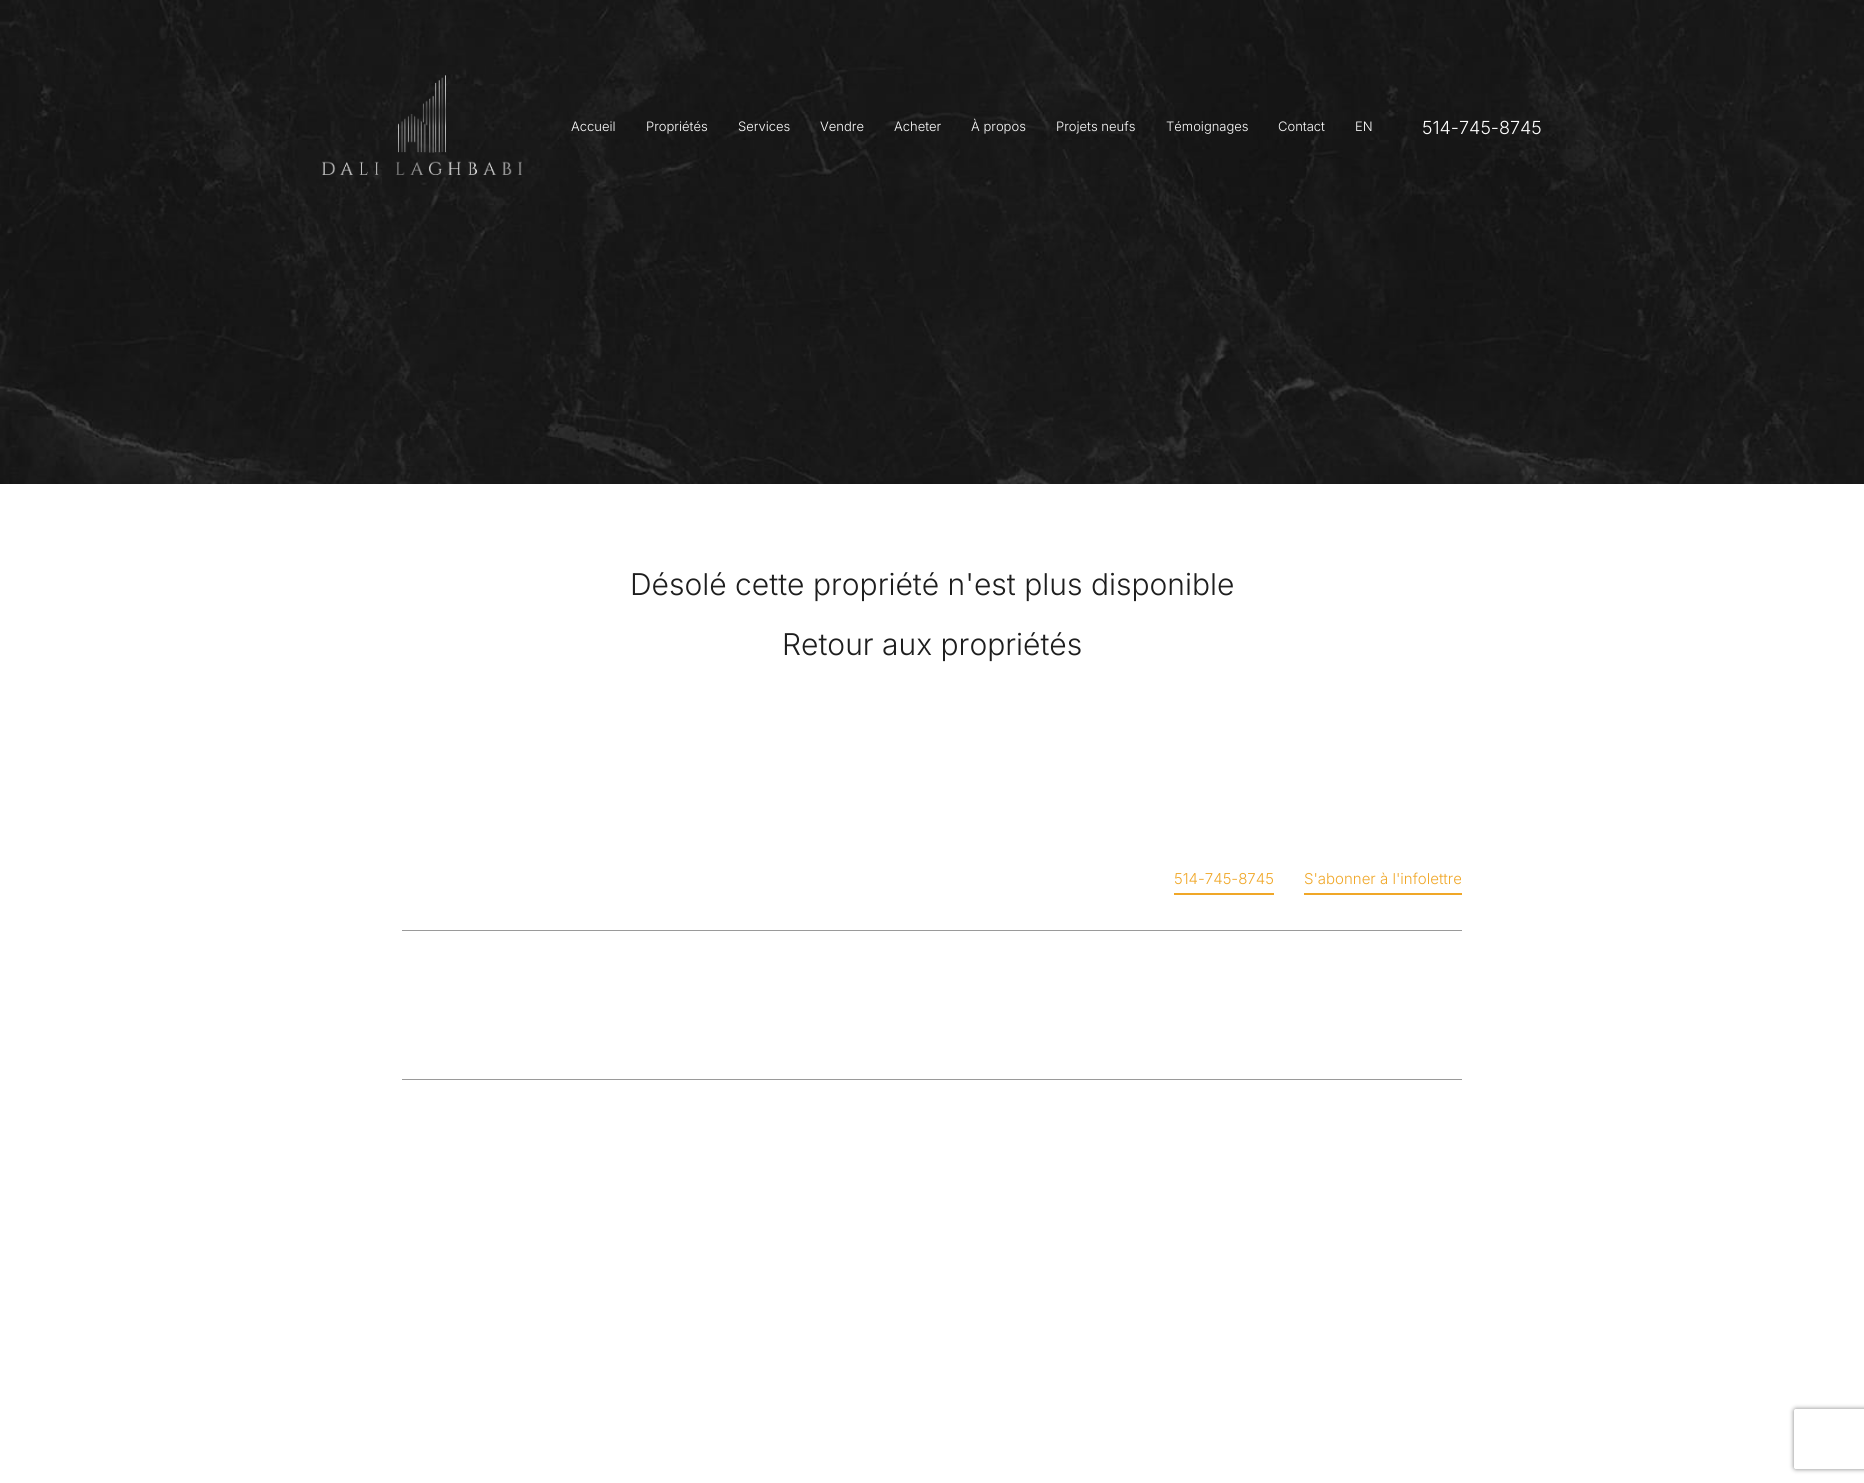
#include <cairo.h>
#include <math.h>
#include <stddef.h>

typedef struct { double x, y; const char *s; } line_t;

static void ink(cairo_t *ctx, unsigned color) {
    cairo_set_source_rgb(ctx, (color >> 16) / 255.0, (color >> 8 & 255) / 255.0, (color & 255) / 255.0);
}

static void round_path(cairo_t *ctx, double x, double y, double w, double h, double r) {
    cairo_new_sub_path(ctx);
    cairo_arc(ctx, x + w - r, y + h - r, r, 0, M_PI / 2);
    cairo_arc(ctx, x + r, y + h - r, r, M_PI / 2, M_PI);
    cairo_arc(ctx, x + r, y + r, r, M_PI, 1.5 * M_PI);
    cairo_arc(ctx, x + w - r, y + r, r, 1.5 * M_PI, 2 * M_PI);
    cairo_close_path(ctx);
}

static void blur_box(cairo_t *ctx, double x, double y, double w, double h, double r, double blur, double alpha) {
    cairo_push_group_with_content(ctx, CAIRO_CONTENT_ALPHA);
    cairo_set_operator(ctx, CAIRO_OPERATOR_SOURCE);
    for (int i = 15; i >= -15 && fmin(w, h) + blur * i / 3 > 0; i -= 2) {
        double e = blur * i / 6;
        cairo_set_source_rgba(ctx, 0, 0, 0, alpha * erfc((i - 1) / 8.5) / 2);
        round_path(ctx, x - e, y - e, w + 2 * e, h + 2 * e, fmax(0, fmin(r + e + blur * .6, fmin(w, h) / 2 + e)));
        cairo_fill(ctx);
    }
    cairo_pattern_t *soft = cairo_pop_group(ctx);
    cairo_mask(ctx, soft);
    cairo_pattern_destroy(soft);
}

static void paste(cairo_t *ctx, const char *path, double x, double y, double w, double h) {
    cairo_surface_t *image = cairo_image_surface_create_from_png(path);
    cairo_save(ctx);
    cairo_set_source_surface(ctx, image, x, y);
    cairo_rectangle(ctx, x, y, w, h);
    cairo_fill(ctx);
    cairo_restore(ctx);
    cairo_surface_destroy(image);
}

int main(void) {
    cairo_surface_t *surface = cairo_image_surface_create(CAIRO_FORMAT_RGB24, 1864, 1483);
    cairo_t *ctx = cairo_create(surface);
    cairo_font_options_t *options = cairo_font_options_create();
    cairo_font_options_set_hint_metrics(options, CAIRO_HINT_METRICS_OFF);
    cairo_font_options_set_hint_style(options, CAIRO_HINT_STYLE_NONE);
    cairo_set_font_options(ctx, options);
    cairo_set_miter_limit(ctx, 4);
    ink(ctx, 0xFFFFFF);
    cairo_paint(ctx);
    paste(ctx, "media/1.png", 0, 0, 1864, 484);
    paste(ctx, "media/2.png", 322, 75, 200, 100);
    cairo_select_font_face(ctx, "Inter Light", CAIRO_FONT_SLANT_NORMAL, CAIRO_FONT_WEIGHT_NORMAL);
    cairo_set_font_size(ctx, 13);
    ink(ctx, 0xFFFFFF);
    {
        static const line_t items[] = {
            {571, 131, "Accueil"},
            {646, 131, "Propriétés"},
            {738, 131, "Services"},
            {820, 131, "Vendre"},
            {894, 131, "Acheter"},
            {971, 131, "À propos"},
            {1056, 131, "Projets neufs"},
            {1166, 131, "Témoignages"},
            {1278, 131, "Contact"},
            {1355, 131, "EN"},
        };
        for (size_t i = 0; i < sizeof items / sizeof *items; i++) {
            cairo_move_to(ctx, items[i].x, items[i].y);
            cairo_show_text(ctx, items[i].s);
        }
    }
    cairo_set_font_size(ctx, 18);
    cairo_move_to(ctx, 1422, 134);
    cairo_show_text(ctx, "514-745-8745");
    cairo_set_font_size(ctx, 30);
    ink(ctx, 0x1E1E1E);
    cairo_move_to(ctx, 630, 595);
    cairo_show_text(ctx, "Désolé cette propriété n'est plus disponible");
    cairo_move_to(ctx, 782, 655);
    cairo_show_text(ctx, "Retour aux propriétés");
    ink(ctx, 0xF0A728);
    cairo_rectangle(ctx, 1174, 893, 100, 2);
    cairo_fill(ctx);
    cairo_set_font_size(ctx, 15);
    cairo_move_to(ctx, 1174, 884);
    cairo_show_text(ctx, "514-745-8745");
    cairo_rectangle(ctx, 1304, 893, 158, 2);
    cairo_fill(ctx);
    cairo_move_to(ctx, 1304, 884);
    cairo_show_text(ctx, "S'abonner à l'infolettre");
    ink(ctx, 0x9A9A9A);
    cairo_rectangle(ctx, 402, 930, 1060, 1);
    cairo_fill(ctx);
    cairo_rectangle(ctx, 402, 1079, 1060, 1);
    cairo_fill(ctx);
    cairo_save(ctx);
    cairo_set_fill_rule(ctx, CAIRO_FILL_RULE_EVEN_ODD);
    cairo_new_path(ctx);
    cairo_move_to(ctx, 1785, 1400);
    cairo_line_to(ctx, 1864, 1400);
    cairo_line_to(ctx, 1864, 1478);
    cairo_line_to(ctx, 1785, 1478);
    cairo_close_path(ctx);
    cairo_move_to(ctx, 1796, 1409);
    cairo_line_to(ctx, 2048, 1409);
    cairo_curve_to(ctx, 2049, 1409, 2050, 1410, 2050, 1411);
    cairo_line_to(ctx, 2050, 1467);
    cairo_curve_to(ctx, 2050, 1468, 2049, 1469, 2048, 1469);
    cairo_line_to(ctx, 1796, 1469);
    cairo_curve_to(ctx, 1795, 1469, 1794, 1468, 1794, 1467);
    cairo_line_to(ctx, 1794, 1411);
    cairo_curve_to(ctx, 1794, 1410, 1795, 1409, 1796, 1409);
    cairo_close_path(ctx);
    cairo_clip(ctx);
    ink(ctx, 0x808080);
    blur_box(ctx, 1794, 1409, 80, 60, 2, 2.5, 1);
    cairo_restore(ctx);
    cairo_surface_write_to_png(surface, "image.png");
    cairo_font_options_destroy(options);
    cairo_destroy(ctx);
    cairo_surface_destroy(surface);
    return 0;
}
